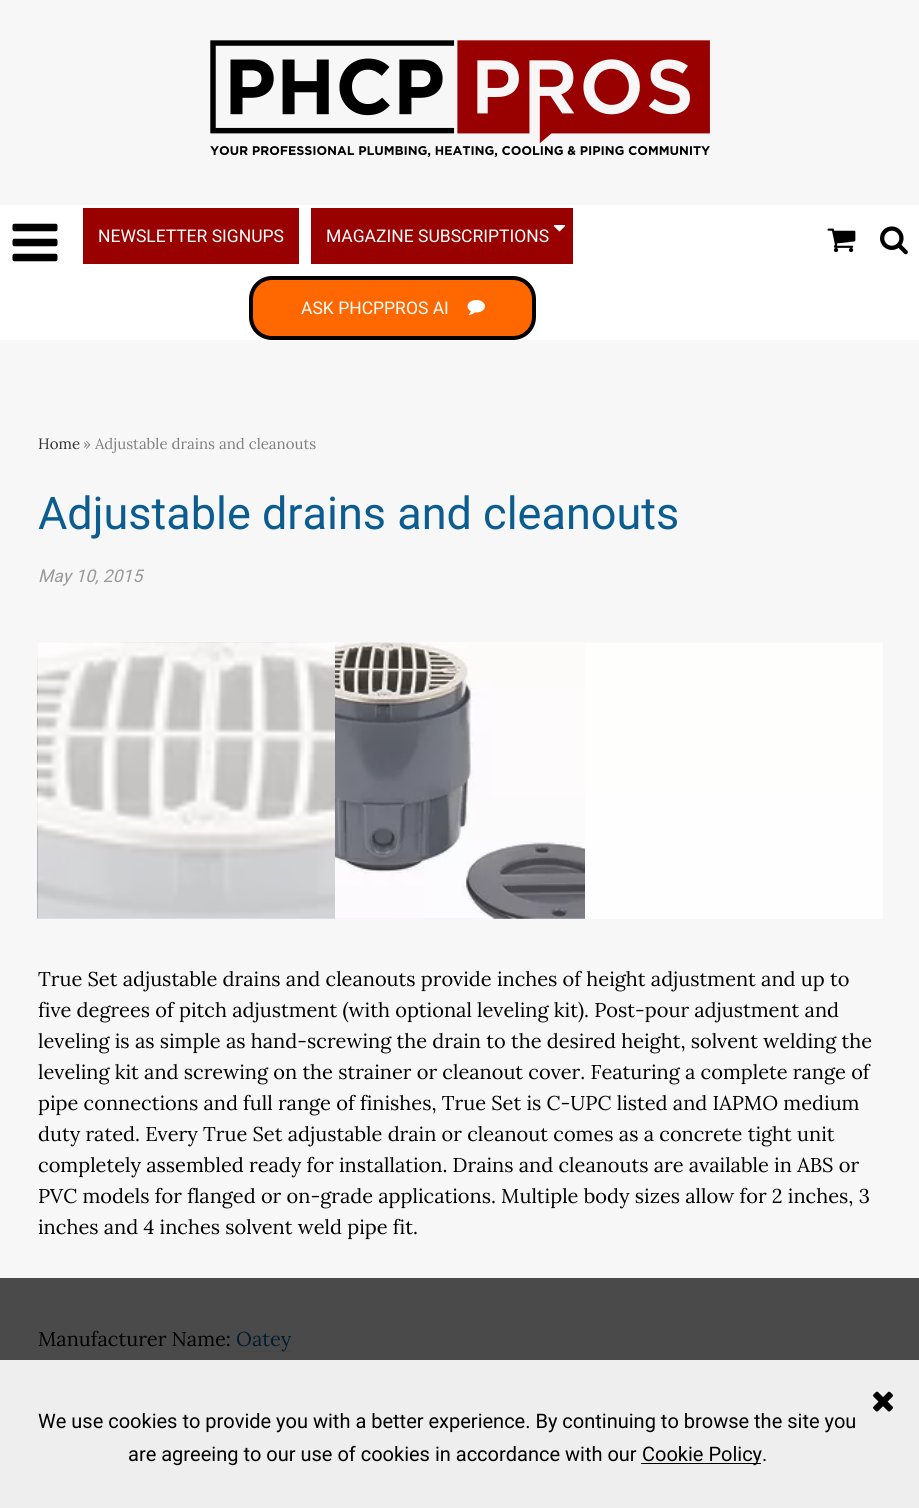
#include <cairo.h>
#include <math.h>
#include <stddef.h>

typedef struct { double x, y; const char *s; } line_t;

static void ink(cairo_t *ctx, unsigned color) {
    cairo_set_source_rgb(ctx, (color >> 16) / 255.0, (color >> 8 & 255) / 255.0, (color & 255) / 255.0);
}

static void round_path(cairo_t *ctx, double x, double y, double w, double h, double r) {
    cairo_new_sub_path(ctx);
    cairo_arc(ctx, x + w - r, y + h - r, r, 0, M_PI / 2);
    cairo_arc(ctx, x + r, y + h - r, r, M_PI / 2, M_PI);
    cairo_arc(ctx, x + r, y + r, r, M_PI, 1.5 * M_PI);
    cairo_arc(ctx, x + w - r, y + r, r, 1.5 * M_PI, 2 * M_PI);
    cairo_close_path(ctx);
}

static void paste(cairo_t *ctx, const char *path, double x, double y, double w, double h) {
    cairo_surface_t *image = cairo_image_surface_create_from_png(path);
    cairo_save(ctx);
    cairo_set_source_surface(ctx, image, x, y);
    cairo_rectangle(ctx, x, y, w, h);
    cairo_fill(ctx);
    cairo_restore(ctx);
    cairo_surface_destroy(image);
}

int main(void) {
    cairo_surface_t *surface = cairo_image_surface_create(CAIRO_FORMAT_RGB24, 919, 1508);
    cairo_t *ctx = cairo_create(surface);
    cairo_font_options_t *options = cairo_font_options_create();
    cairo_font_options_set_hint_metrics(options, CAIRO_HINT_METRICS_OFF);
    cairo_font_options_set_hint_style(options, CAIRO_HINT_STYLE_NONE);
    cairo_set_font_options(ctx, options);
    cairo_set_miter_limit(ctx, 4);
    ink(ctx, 0xF7F7F7);
    cairo_paint(ctx);
    ink(ctx, 0x4A4A4A);
    cairo_rectangle(ctx, 0, 1278, 919, 82);
    cairo_fill(ctx);
    ink(ctx, 0xFDFDFD);
    cairo_rectangle(ctx, 38, 643, 845, 276);
    cairo_fill(ctx);
    paste(ctx, "media/1.png", 210, 40, 500, 117);
    ink(ctx, 0xFFFFFF);
    cairo_rectangle(ctx, 0, 205, 919, 135);
    cairo_fill(ctx);
    paste(ctx, "media/2.png", 12, 223, 46, 39);
    ink(ctx, 0x990000);
    cairo_rectangle(ctx, 83, 208, 216, 56);
    cairo_fill(ctx);
    cairo_select_font_face(ctx, "Roboto", CAIRO_FONT_SLANT_NORMAL, CAIRO_FONT_WEIGHT_NORMAL);
    cairo_set_font_size(ctx, 17.5);
    ink(ctx, 0xFFFFFF);
    cairo_move_to(ctx, 98, 242);
    cairo_show_text(ctx, "NEWSLETTER SIGNUPS");
    ink(ctx, 0x990000);
    cairo_rectangle(ctx, 311, 208, 262, 56);
    cairo_fill(ctx);
    ink(ctx, 0xFFFFFF);
    cairo_move_to(ctx, 326, 242);
    cairo_show_text(ctx, "MAGAZINE SUBSCRIPTIONS");
    paste(ctx, "media/3.png", 553, 225, 13, 7);
    ink(ctx, 0xFF6700);
    round_path(ctx, 251, 278, 283, 60, 21);
    cairo_fill_preserve(ctx);
    ink(ctx, 0x000000);
    cairo_set_line_width(ctx, 4);
    cairo_stroke(ctx);
    ink(ctx, 0xFFFFFF);
    cairo_move_to(ctx, 301, 314);
    cairo_show_text(ctx, "ASK PHCPPROS AI");
    paste(ctx, "media/4.png", 467, 300, 18, 15);
    paste(ctx, "media/5.png", 827, 228, 29, 25);
    paste(ctx, "media/6.png", 880, 226, 28, 29);
    cairo_select_font_face(ctx, "Lora", CAIRO_FONT_SLANT_NORMAL, CAIRO_FONT_WEIGHT_NORMAL);
    cairo_set_font_size(ctx, 15);
    ink(ctx, 0x333333);
    cairo_move_to(ctx, 38, 449);
    cairo_show_text(ctx, "Home");
    ink(ctx, 0x808080);
    cairo_move_to(ctx, 83, 449);
    cairo_show_text(ctx, "» Adjustable drains and cleanouts");
    cairo_select_font_face(ctx, "Roboto", CAIRO_FONT_SLANT_NORMAL, CAIRO_FONT_WEIGHT_NORMAL);
    cairo_set_font_size(ctx, 45);
    ink(ctx, 0x0B5C91);
    cairo_move_to(ctx, 38, 529);
    cairo_show_text(ctx, "Adjustable drains and cleanouts");
    cairo_select_font_face(ctx, "Roboto", CAIRO_FONT_SLANT_ITALIC, CAIRO_FONT_WEIGHT_NORMAL);
    cairo_set_font_size(ctx, 17.5);
    ink(ctx, 0x999999);
    cairo_move_to(ctx, 38, 582);
    cairo_show_text(ctx, "May 10, 2015");
    paste(ctx, "media/7.png", 37, 642, 845, 277);
    paste(ctx, "media/8.png", 335, 642, 250, 277);
    cairo_select_font_face(ctx, "Lora", CAIRO_FONT_SLANT_NORMAL, CAIRO_FONT_WEIGHT_NORMAL);
    cairo_set_font_size(ctx, 20);
    ink(ctx, 0x000000);
    {
        static const line_t items[] = {
            {38, 986, "True Set adjustable drains and cleanouts provide inches of height adjustment and up to"},
            {38, 1017, "five degrees of pitch adjustment (with optional leveling kit). Post-pour adjustment and"},
            {38, 1048, "leveling is as simple as hand-screwing the drain to the desired height, solvent welding the"},
            {38, 1079, "leveling kit and screwing on the strainer or cleanout cover. Featuring a complete range of"},
            {38, 1110, "pipe connections and full range of finishes, True Set is C-UPC listed and IAPMO medium"},
            {38, 1141, "duty rated. Every True Set adjustable drain or cleanout comes as a concrete tight unit"},
            {38, 1172, "completely assembled ready for installation. Drains and cleanouts are available in ABS or"},
            {38, 1203, "PVC models for flanged or on-grade applications. Multiple body sizes allow for 2 inches, 3"},
            {38, 1234, "inches and 4 inches solvent weld pipe fit."},
            {38, 1346, "Manufacturer Name:"},
        };
        for (size_t i = 0; i < sizeof items / sizeof *items; i++) {
            cairo_move_to(ctx, items[i].x, items[i].y);
            cairo_show_text(ctx, items[i].s);
        }
    }
    ink(ctx, 0x464646);
    cairo_rectangle(ctx, 236, 1351, 55, 1);
    cairo_fill(ctx);
    ink(ctx, 0x031C2C);
    cairo_move_to(ctx, 236, 1346);
    cairo_show_text(ctx, "Oatey");
    ink(ctx, 0xEEEEEE);
    cairo_rectangle(ctx, 0, 1360, 919, 148);
    cairo_fill(ctx);
    paste(ctx, "media/9.png", 873, 1391, 20, 21);
    cairo_select_font_face(ctx, "Roboto", CAIRO_FONT_SLANT_NORMAL, CAIRO_FONT_WEIGHT_NORMAL);
    ink(ctx, 0x000000);
    cairo_move_to(ctx, 38, 1428);
    cairo_show_text(ctx, "We use cookies to provide you with a better experience. By continuing to browse the site you");
    cairo_move_to(ctx, 128, 1461);
    cairo_show_text(ctx, "are agreeing to our use of cookies in accordance with our");
    cairo_rectangle(ctx, 641, 1463, 120, 1);
    cairo_fill(ctx);
    cairo_move_to(ctx, 642, 1461);
    cairo_show_text(ctx, "Cookie Policy.");
    cairo_surface_write_to_png(surface, "image.png");
    cairo_font_options_destroy(options);
    cairo_destroy(ctx);
    cairo_surface_destroy(surface);
    return 0;
}
